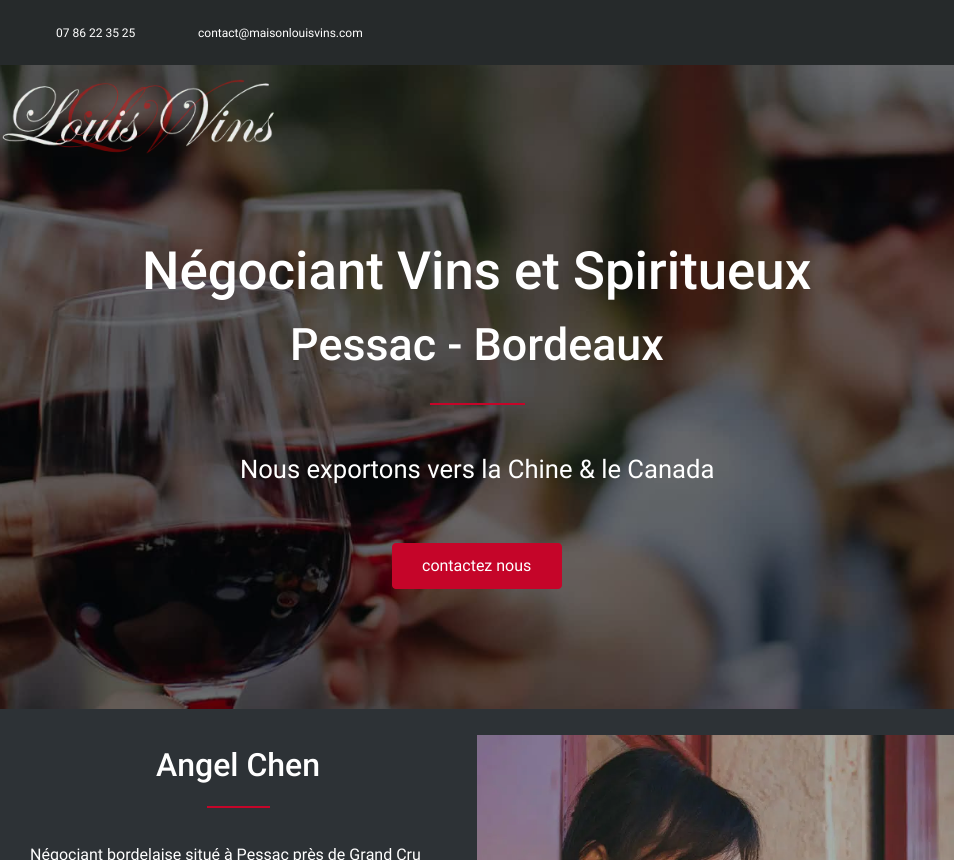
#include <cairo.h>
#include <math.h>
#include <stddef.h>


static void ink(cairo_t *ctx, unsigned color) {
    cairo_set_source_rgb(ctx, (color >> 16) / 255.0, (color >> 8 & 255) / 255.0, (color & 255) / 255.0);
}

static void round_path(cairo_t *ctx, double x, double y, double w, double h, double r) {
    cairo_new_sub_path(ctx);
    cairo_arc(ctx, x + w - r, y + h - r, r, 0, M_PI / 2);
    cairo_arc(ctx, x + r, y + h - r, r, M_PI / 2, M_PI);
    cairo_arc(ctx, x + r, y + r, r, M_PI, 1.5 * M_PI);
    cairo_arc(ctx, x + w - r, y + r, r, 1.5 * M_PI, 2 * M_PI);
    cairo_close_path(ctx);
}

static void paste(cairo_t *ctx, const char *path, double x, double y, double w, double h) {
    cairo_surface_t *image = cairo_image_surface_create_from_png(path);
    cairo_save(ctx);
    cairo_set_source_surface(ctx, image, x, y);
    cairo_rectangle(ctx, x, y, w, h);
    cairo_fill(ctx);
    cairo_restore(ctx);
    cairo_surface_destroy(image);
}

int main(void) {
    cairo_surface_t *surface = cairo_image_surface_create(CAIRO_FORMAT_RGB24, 954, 860);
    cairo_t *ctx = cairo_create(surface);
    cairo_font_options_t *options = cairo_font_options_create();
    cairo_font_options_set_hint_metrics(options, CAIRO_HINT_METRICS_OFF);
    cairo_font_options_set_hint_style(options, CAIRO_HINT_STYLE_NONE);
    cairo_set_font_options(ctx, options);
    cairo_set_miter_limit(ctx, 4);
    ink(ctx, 0x262A2B);
    cairo_paint(ctx);
    cairo_select_font_face(ctx, "Roboto", CAIRO_FONT_SLANT_NORMAL, CAIRO_FONT_WEIGHT_NORMAL);
    cairo_set_font_size(ctx, 12);
    ink(ctx, 0xFFFFFF);
    cairo_move_to(ctx, 56, 37);
    cairo_show_text(ctx, "07 86 22 35 25");
    cairo_move_to(ctx, 198, 37);
    cairo_show_text(ctx, "contact@maisonlouisvins.com");
    paste(ctx, "media/2.png", 0, 65, 954, 644);
    paste(ctx, "media/1.png", 2, 79, 272, 75);
    cairo_select_font_face(ctx, "Roboto Medium", CAIRO_FONT_SLANT_NORMAL, CAIRO_FONT_WEIGHT_NORMAL);
    cairo_set_font_size(ctx, 52.75);
    cairo_move_to(ctx, 142, 289);
    cairo_show_text(ctx, "Négociant Vins et Spiritueux");
    cairo_set_font_size(ctx, 44.75);
    cairo_move_to(ctx, 290, 360);
    cairo_show_text(ctx, "Pessac - Bordeaux");
    ink(ctx, 0xC50529);
    cairo_rectangle(ctx, 430, 403, 95, 2);
    cairo_fill(ctx);
    cairo_select_font_face(ctx, "Roboto", CAIRO_FONT_SLANT_NORMAL, CAIRO_FONT_WEIGHT_NORMAL);
    cairo_set_font_size(ctx, 25.6);
    ink(ctx, 0xFFFFFF);
    cairo_move_to(ctx, 240, 478);
    cairo_show_text(ctx, "Nous exportons vers la Chine & le Canada");
    ink(ctx, 0xC50529);
    round_path(ctx, 392, 543, 170, 46, 4);
    cairo_fill(ctx);
    cairo_set_font_size(ctx, 16);
    ink(ctx, 0xFFFFFF);
    cairo_move_to(ctx, 422, 571);
    cairo_show_text(ctx, "contactez nous");
    ink(ctx, 0x2D3236);
    cairo_rectangle(ctx, 0, 709, 477, 151);
    cairo_fill(ctx);
    cairo_select_font_face(ctx, "Roboto Medium", CAIRO_FONT_SLANT_NORMAL, CAIRO_FONT_WEIGHT_NORMAL);
    cairo_set_font_size(ctx, 32);
    ink(ctx, 0xFFFFFF);
    cairo_move_to(ctx, 156, 776);
    cairo_show_text(ctx, "Angel Chen");
    ink(ctx, 0xC50529);
    cairo_rectangle(ctx, 207, 806, 63, 2);
    cairo_fill(ctx);
    cairo_select_font_face(ctx, "Roboto", CAIRO_FONT_SLANT_NORMAL, CAIRO_FONT_WEIGHT_NORMAL);
    cairo_set_font_size(ctx, 16);
    ink(ctx, 0xFFFFFF);
    cairo_move_to(ctx, 30, 860);
    cairo_show_text(ctx, "Négociant bordelaise situé à Pessac près de Grand Cru");
    ink(ctx, 0x2D3236);
    cairo_rectangle(ctx, 477, 709, 477, 26);
    cairo_fill(ctx);
    paste(ctx, "media/3.png", 477, 735, 477, 125);
    cairo_surface_write_to_png(surface, "image.png");
    cairo_font_options_destroy(options);
    cairo_destroy(ctx);
    cairo_surface_destroy(surface);
    return 0;
}
